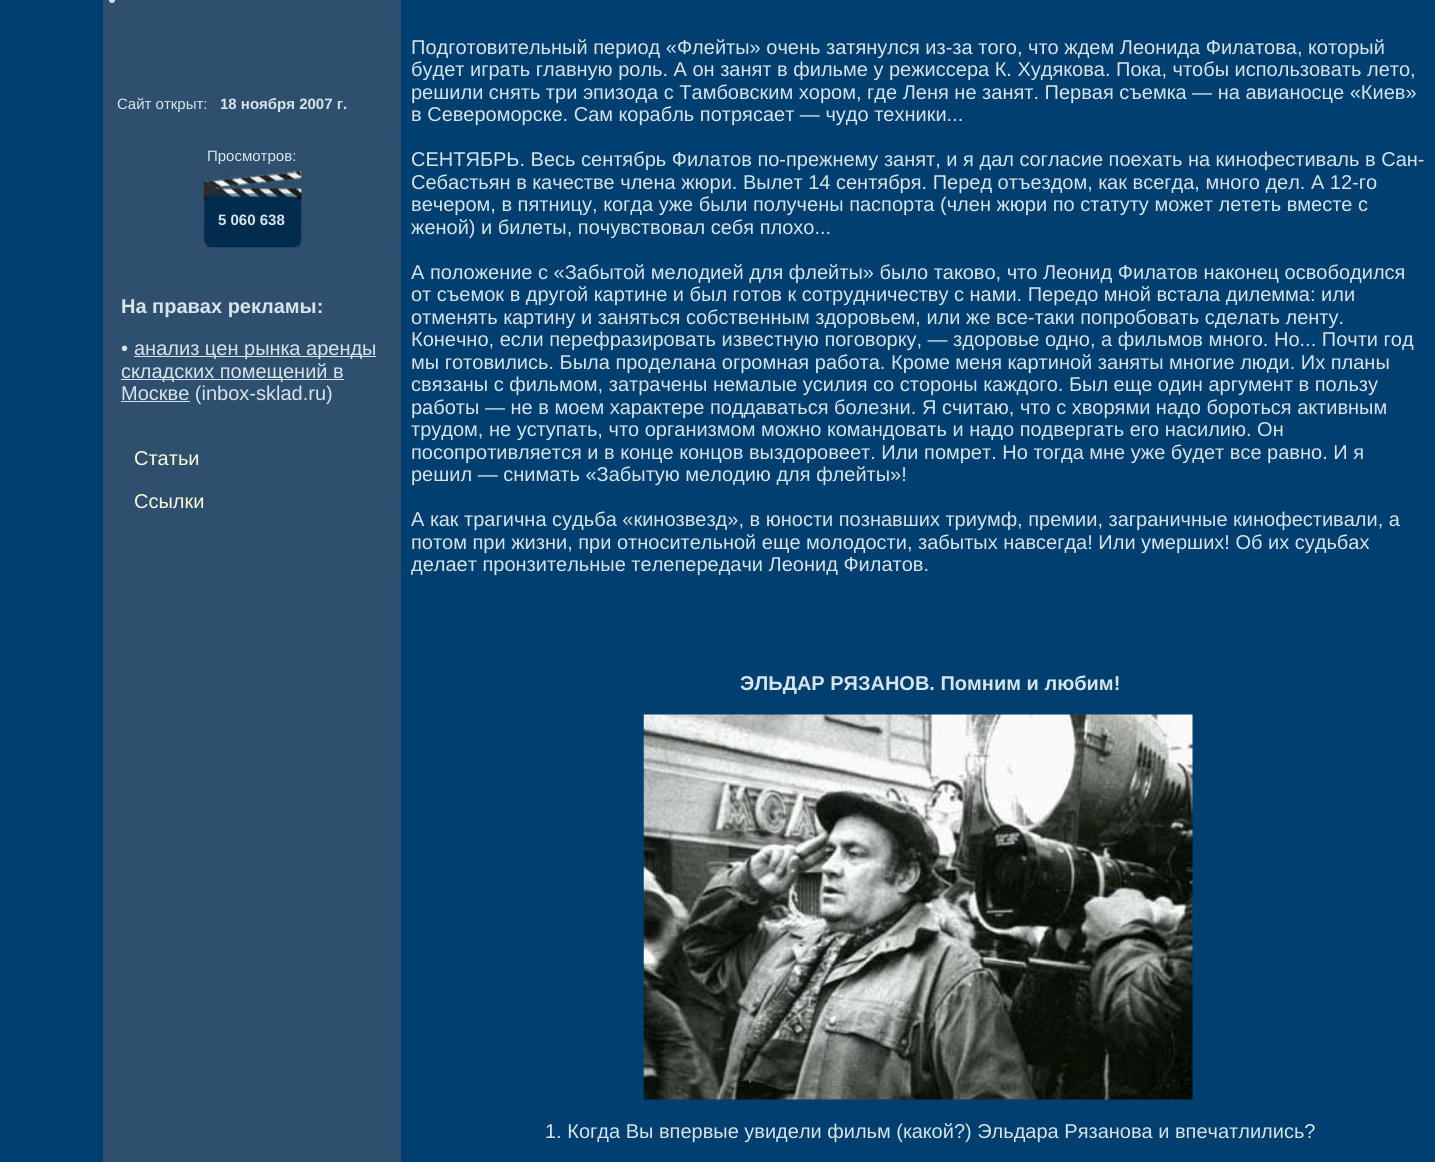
#include <cairo.h>
#include <math.h>
#include <stddef.h>

typedef struct { double x, y; const char *s; } line_t;

static void ink(cairo_t *ctx, unsigned color) {
    cairo_set_source_rgb(ctx, (color >> 16) / 255.0, (color >> 8 & 255) / 255.0, (color & 255) / 255.0);
}

static void paste(cairo_t *ctx, const char *path, double x, double y, double w, double h) {
    cairo_surface_t *image = cairo_image_surface_create_from_png(path);
    cairo_save(ctx);
    cairo_set_source_surface(ctx, image, x, y);
    cairo_rectangle(ctx, x, y, w, h);
    cairo_fill(ctx);
    cairo_restore(ctx);
    cairo_surface_destroy(image);
}

int main(void) {
    cairo_surface_t *surface = cairo_image_surface_create(CAIRO_FORMAT_RGB24, 1435, 1162);
    cairo_t *ctx = cairo_create(surface);
    cairo_font_options_t *options = cairo_font_options_create();
    cairo_font_options_set_hint_metrics(options, CAIRO_HINT_METRICS_OFF);
    cairo_font_options_set_hint_style(options, CAIRO_HINT_STYLE_NONE);
    cairo_set_font_options(ctx, options);
    cairo_set_miter_limit(ctx, 4);
    ink(ctx, 0x003F6F);
    cairo_paint(ctx);
    ink(ctx, 0x2F4F6F);
    cairo_rectangle(ctx, 103, 0, 298, 1162);
    cairo_fill(ctx);
    ink(ctx, 0xD7E5EB);
    cairo_arc(ctx, 112, 0, 3, 0, 2 * M_PI);
    cairo_fill(ctx);
    cairo_select_font_face(ctx, "Liberation Sans", CAIRO_FONT_SLANT_NORMAL, CAIRO_FONT_WEIGHT_NORMAL);
    cairo_set_font_size(ctx, 15);
    cairo_move_to(ctx, 117, 109);
    cairo_show_text(ctx, "Сайт открыт:");
    cairo_select_font_face(ctx, "Liberation Sans", CAIRO_FONT_SLANT_NORMAL, CAIRO_FONT_WEIGHT_BOLD);
    cairo_move_to(ctx, 220, 109);
    cairo_show_text(ctx, "18 ноября 2007 г.");
    paste(ctx, "media/1.png", 202, 164, 101, 88);
    cairo_select_font_face(ctx, "Liberation Sans", CAIRO_FONT_SLANT_NORMAL, CAIRO_FONT_WEIGHT_NORMAL);
    cairo_move_to(ctx, 207, 161);
    cairo_show_text(ctx, "Просмотров:");
    cairo_select_font_face(ctx, "Liberation Sans", CAIRO_FONT_SLANT_NORMAL, CAIRO_FONT_WEIGHT_BOLD);
    cairo_move_to(ctx, 218, 225);
    cairo_show_text(ctx, "5 060 638");
    cairo_set_font_size(ctx, 20);
    cairo_move_to(ctx, 121, 313);
    cairo_show_text(ctx, "На правах рекламы:");
    cairo_select_font_face(ctx, "Liberation Sans", CAIRO_FONT_SLANT_NORMAL, CAIRO_FONT_WEIGHT_NORMAL);
    cairo_move_to(ctx, 121, 355);
    cairo_show_text(ctx, "•");
    cairo_rectangle(ctx, 134, 356, 242, 1);
    cairo_fill(ctx);
    cairo_move_to(ctx, 134, 355);
    cairo_show_text(ctx, "анализ цен рынка аренды");
    cairo_rectangle(ctx, 121, 379, 223, 1);
    cairo_fill(ctx);
    cairo_move_to(ctx, 121, 378);
    cairo_show_text(ctx, "складских помещений в");
    cairo_rectangle(ctx, 121, 401, 69, 1);
    cairo_fill(ctx);
    cairo_move_to(ctx, 121, 400);
    cairo_show_text(ctx, "Москве (inbox-sklad.ru)");
    ink(ctx, 0xFCFCD7);
    cairo_move_to(ctx, 134, 465);
    cairo_show_text(ctx, "Статьи");
    cairo_move_to(ctx, 134, 508);
    cairo_show_text(ctx, "Ссылки");
    ink(ctx, 0xD7E5EB);
    {
        static const line_t items[] = {
            {411, 54, "Подготовительный период «Флейты» очень затянулся из-за того, что ждем Леонида Филатова, который"},
            {411, 76, "будет играть главную роль. А он занят в фильме у режиссера К. Худякова. Пока, чтобы использовать лето,"},
            {411, 99, "решили снять три эпизода с Тамбовским хором, где Леня не занят. Первая съемка — на авианосце «Киев»"},
            {411, 121, "в Североморске. Сам корабль потрясает — чудо техники..."},
            {411, 166, "СЕНТЯБРЬ. Весь сентябрь Филатов по-прежнему занят, и я дал согласие поехать на кинофестиваль в Сан-"},
            {411, 189, "Себастьян в качестве члена жюри. Вылет 14 сентября. Перед отъездом, как всегда, много дел. А 12-го"},
            {411, 211, "вечером, в пятницу, когда уже были получены паспорта (член жюри по статуту может лететь вместе с"},
            {411, 234, "женой) и билеты, почувствовал себя плохо..."},
            {411, 279, "А положение с «Забытой мелодией для флейты» было таково, что Леонид Филатов наконец освободился"},
            {411, 301, "от съемок в другой картине и был готов к сотрудничеству с нами. Передо мной встала дилемма: или"},
            {411, 324, "отменять картину и заняться собственным здоровьем, или же все-таки попробовать сделать ленту."},
            {411, 346, "Конечно, если перефразировать известную поговорку, — здоровье одно, а фильмов много. Но... Почти год"},
            {411, 369, "мы готовились. Была проделана огромная работа. Кроме меня картиной заняты многие люди. Их планы"},
            {411, 391, "связаны с фильмом, затрачены немалые усилия со стороны каждого. Был еще один аргумент в пользу"},
            {411, 414, "работы — не в моем характере поддаваться болезни. Я считаю, что с хворями надо бороться активным"},
            {411, 436, "трудом, не уступать, что организмом можно командовать и надо подвергать его насилию. Он"},
            {411, 459, "посопротивляется и в конце концов выздоровеет. Или помрет. Но тогда мне уже будет все равно. И я"},
            {411, 481, "решил — снимать «Забытую мелодию для флейты»!"},
            {411, 526, "А как трагична судьба «кинозвезд», в юности познавших триумф, премии, заграничные кинофестивали, а"},
            {411, 549, "потом при жизни, при относительной еще молодости, забытых навсегда! Или умерших! Об их судьбах"},
            {411, 571, "делает пронзительные телепередачи Леонид Филатов."},
        };
        for (size_t i = 0; i < sizeof items / sizeof *items; i++) {
            cairo_move_to(ctx, items[i].x, items[i].y);
            cairo_show_text(ctx, items[i].s);
        }
    }
    cairo_select_font_face(ctx, "Liberation Sans", CAIRO_FONT_SLANT_NORMAL, CAIRO_FONT_WEIGHT_BOLD);
    cairo_move_to(ctx, 740, 690);
    cairo_show_text(ctx, "ЭЛЬДАР РЯЗАНОВ. Помним и любим!");
    paste(ctx, "media/2.png", 643, 714, 550, 386);
    cairo_select_font_face(ctx, "Liberation Sans", CAIRO_FONT_SLANT_NORMAL, CAIRO_FONT_WEIGHT_NORMAL);
    cairo_move_to(ctx, 545, 1138);
    cairo_show_text(ctx, "1. Когда Вы впервые увидели фильм (какой?) Эльдара Рязанова и впечатлились?");
    cairo_surface_write_to_png(surface, "image.png");
    cairo_font_options_destroy(options);
    cairo_destroy(ctx);
    cairo_surface_destroy(surface);
    return 0;
}
